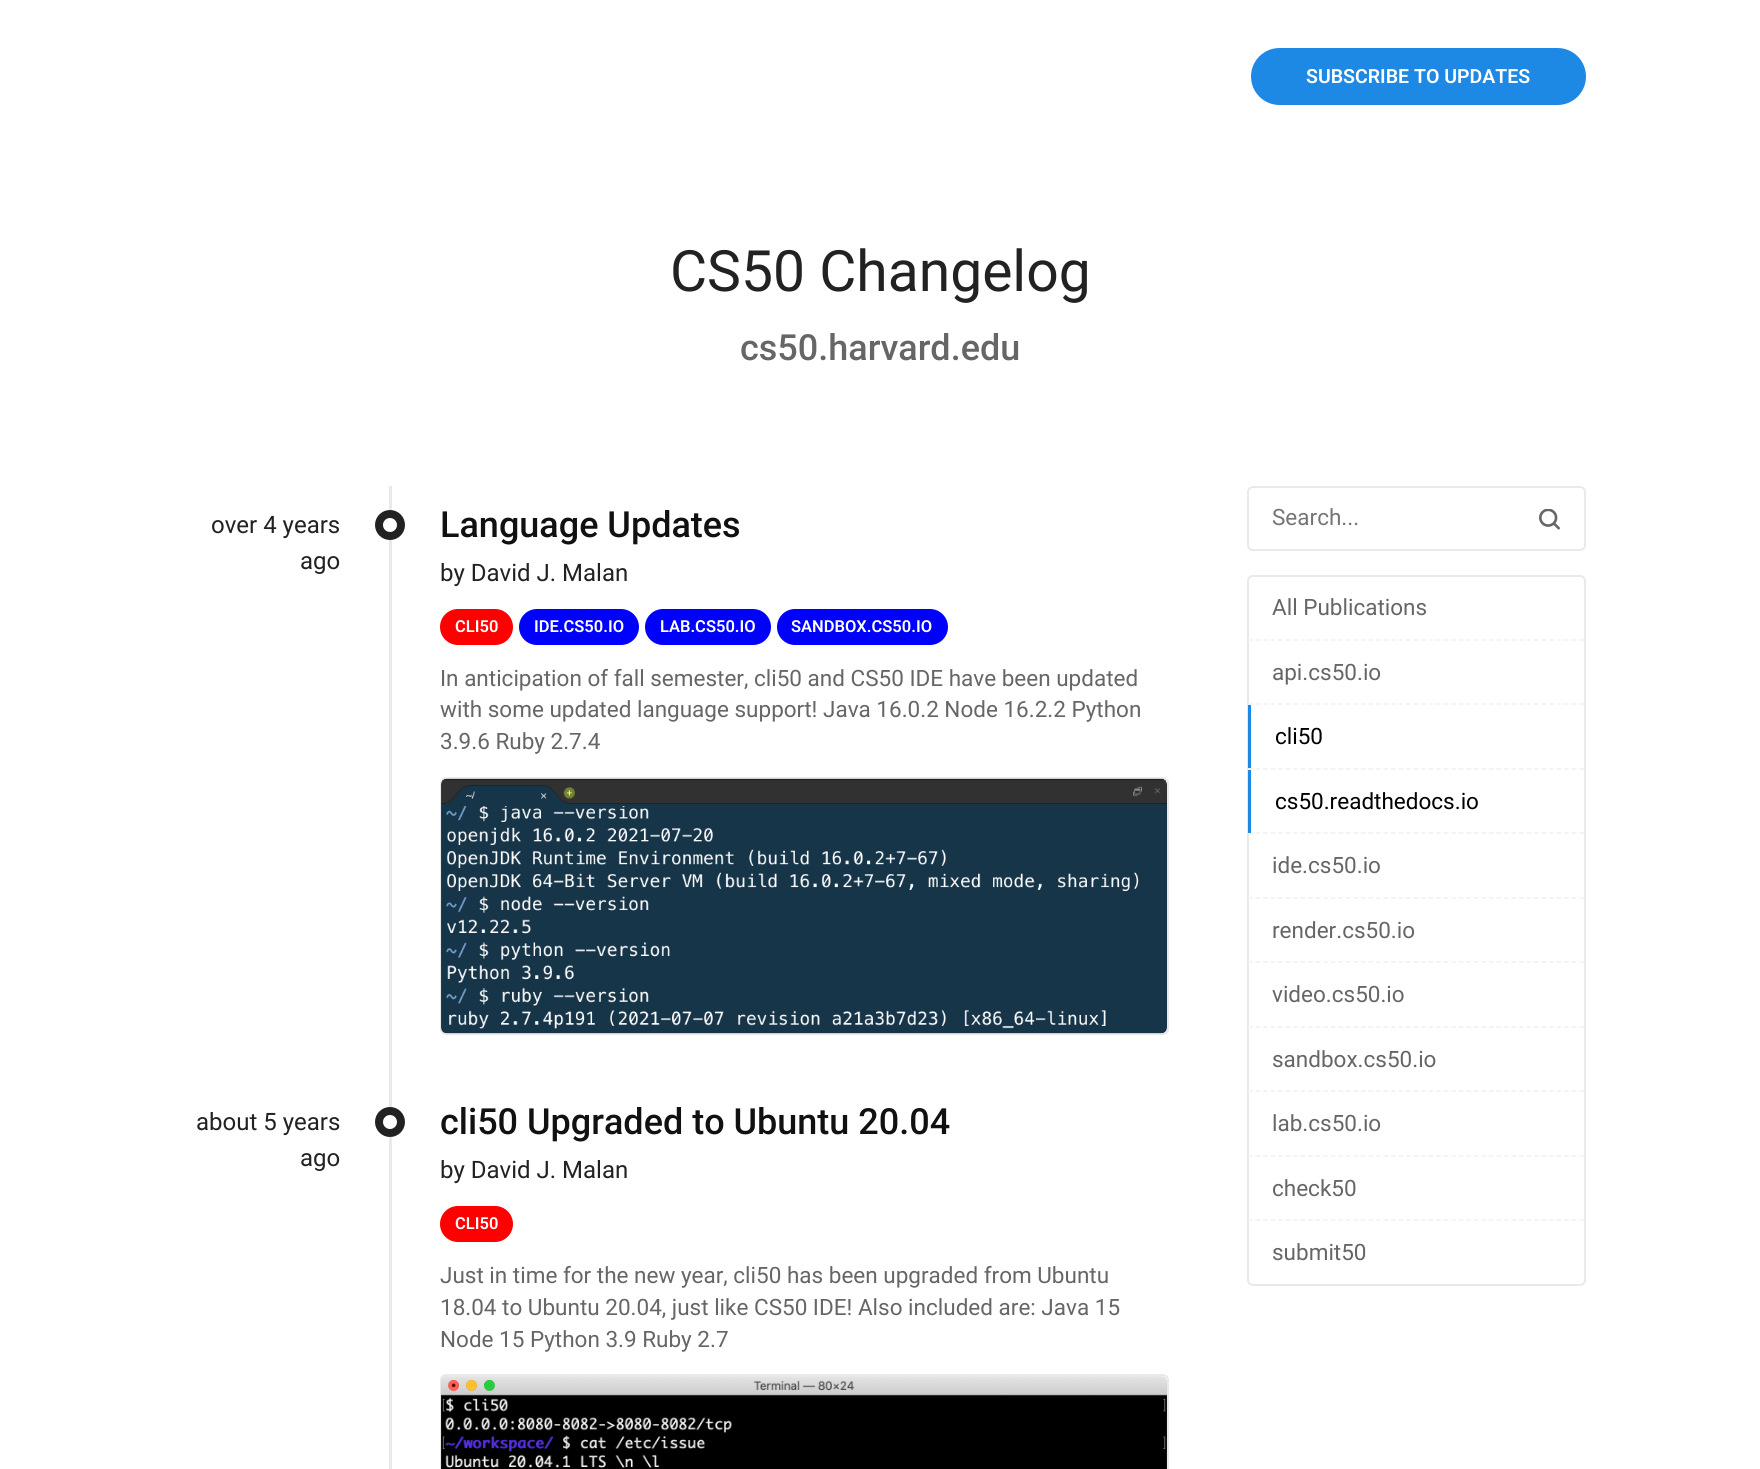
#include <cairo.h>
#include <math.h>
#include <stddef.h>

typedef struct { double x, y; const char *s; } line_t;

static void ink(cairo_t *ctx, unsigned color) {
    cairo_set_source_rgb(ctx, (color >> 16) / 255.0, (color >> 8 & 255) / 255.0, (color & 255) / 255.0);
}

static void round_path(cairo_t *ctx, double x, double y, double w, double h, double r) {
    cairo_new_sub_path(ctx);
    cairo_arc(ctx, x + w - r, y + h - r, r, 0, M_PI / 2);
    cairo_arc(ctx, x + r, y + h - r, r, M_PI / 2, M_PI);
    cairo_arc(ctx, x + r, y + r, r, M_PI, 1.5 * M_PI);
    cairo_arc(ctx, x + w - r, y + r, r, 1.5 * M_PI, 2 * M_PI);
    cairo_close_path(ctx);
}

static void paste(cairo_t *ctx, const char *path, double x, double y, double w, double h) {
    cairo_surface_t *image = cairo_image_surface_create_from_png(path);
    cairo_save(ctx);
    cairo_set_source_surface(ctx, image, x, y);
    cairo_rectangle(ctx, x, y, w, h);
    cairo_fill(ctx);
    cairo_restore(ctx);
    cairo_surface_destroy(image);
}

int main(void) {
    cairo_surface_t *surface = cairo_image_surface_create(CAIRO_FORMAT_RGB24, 1760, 1469);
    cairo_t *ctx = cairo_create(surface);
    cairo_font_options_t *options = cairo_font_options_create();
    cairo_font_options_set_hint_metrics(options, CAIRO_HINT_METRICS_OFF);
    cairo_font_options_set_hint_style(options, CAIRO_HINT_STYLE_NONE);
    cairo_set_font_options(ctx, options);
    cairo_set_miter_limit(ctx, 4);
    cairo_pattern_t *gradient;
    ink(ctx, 0xFFFFFF);
    cairo_paint(ctx);
    ink(ctx, 0x1E88E5);
    round_path(ctx, 1251, 48, 335, 57, 28.5);
    cairo_fill(ctx);
    cairo_select_font_face(ctx, "Roboto SemiBold", CAIRO_FONT_SLANT_NORMAL, CAIRO_FONT_WEIGHT_NORMAL);
    cairo_set_font_size(ctx, 19.5);
    ink(ctx, 0xFFFFFF);
    cairo_move_to(ctx, 1306, 83);
    cairo_show_text(ctx, "SUBSCRIBE TO UPDATES");
    cairo_select_font_face(ctx, "Roboto", CAIRO_FONT_SLANT_NORMAL, CAIRO_FONT_WEIGHT_NORMAL);
    cairo_set_font_size(ctx, 57);
    ink(ctx, 0x222222);
    cairo_move_to(ctx, 670, 291);
    cairo_show_text(ctx, "CS50 Changelog");
    cairo_select_font_face(ctx, "Roboto Medium", CAIRO_FONT_SLANT_NORMAL, CAIRO_FONT_WEIGHT_NORMAL);
    cairo_set_font_size(ctx, 36);
    ink(ctx, 0x666666);
    cairo_move_to(ctx, 740, 360);
    cairo_show_text(ctx, "cs50.harvard.edu");
    ink(ctx, 0xE9E9E9);
    cairo_rectangle(ctx, 389, 486, 3, 597);
    cairo_fill(ctx);
    cairo_select_font_face(ctx, "Roboto", CAIRO_FONT_SLANT_NORMAL, CAIRO_FONT_WEIGHT_NORMAL);
    cairo_set_font_size(ctx, 24);
    ink(ctx, 0x222222);
    cairo_move_to(ctx, 211, 533);
    cairo_show_text(ctx, "over 4 years");
    cairo_move_to(ctx, 300, 569);
    cairo_show_text(ctx, "ago");
    ink(ctx, 0xFFFFFF);
    cairo_new_path(ctx);
    cairo_arc(ctx, 390, 525, 11, 0, 2 * M_PI);
    cairo_fill_preserve(ctx);
    ink(ctx, 0x222222);
    cairo_set_line_width(ctx, 8);
    cairo_stroke(ctx);
    cairo_select_font_face(ctx, "Roboto Medium", CAIRO_FONT_SLANT_NORMAL, CAIRO_FONT_WEIGHT_NORMAL);
    cairo_set_font_size(ctx, 36);
    ink(ctx, 0x111111);
    cairo_move_to(ctx, 440, 537);
    cairo_show_text(ctx, "Language Updates");
    cairo_select_font_face(ctx, "Roboto", CAIRO_FONT_SLANT_NORMAL, CAIRO_FONT_WEIGHT_NORMAL);
    cairo_set_font_size(ctx, 24);
    ink(ctx, 0x222222);
    cairo_move_to(ctx, 440, 581);
    cairo_show_text(ctx, "by David J. Malan");
    ink(ctx, 0xFF0000);
    round_path(ctx, 440, 609, 73, 36, 18);
    cairo_fill(ctx);
    cairo_select_font_face(ctx, "Roboto SemiBold", CAIRO_FONT_SLANT_NORMAL, CAIRO_FONT_WEIGHT_NORMAL);
    cairo_set_font_size(ctx, 16.5);
    ink(ctx, 0xFFFFFF);
    cairo_move_to(ctx, 455, 632);
    cairo_show_text(ctx, "CLI50");
    ink(ctx, 0x0000FF);
    round_path(ctx, 519, 609, 120, 36, 18);
    cairo_fill(ctx);
    ink(ctx, 0xFFFFFF);
    cairo_move_to(ctx, 534, 632);
    cairo_show_text(ctx, "IDE.CS50.IO");
    ink(ctx, 0x0000FF);
    round_path(ctx, 645, 609, 126, 36, 18);
    cairo_fill(ctx);
    ink(ctx, 0xFFFFFF);
    cairo_move_to(ctx, 660, 632);
    cairo_show_text(ctx, "LAB.CS50.IO");
    ink(ctx, 0x0000FF);
    round_path(ctx, 777, 609, 171, 36, 18);
    cairo_fill(ctx);
    ink(ctx, 0xFFFFFF);
    cairo_move_to(ctx, 791, 632);
    cairo_show_text(ctx, "SANDBOX.CS50.IO");
    cairo_select_font_face(ctx, "Roboto", CAIRO_FONT_SLANT_NORMAL, CAIRO_FONT_WEIGHT_NORMAL);
    cairo_set_font_size(ctx, 22.5);
    ink(ctx, 0x666666);
    {
        static const line_t items[] = {
            {440, 686, "In anticipation of fall semester, cli50 and CS50 IDE have been updated"},
            {440, 717, "with some updated language support! Java 16.0.2 Node 16.2.2 Python"},
            {440, 749, "3.9.6 Ruby 2.7.4"},
        };
        for (size_t i = 0; i < sizeof items / sizeof *items; i++) {
            cairo_move_to(ctx, items[i].x, items[i].y);
            cairo_show_text(ctx, items[i].s);
        }
    }
    round_path(ctx, 441, 778, 727, 256, 5);
    ink(ctx, 0xE9E9E9);
    cairo_set_line_width(ctx, 2);
    cairo_stroke(ctx);
    paste(ctx, "media/1.png", 441, 778, 726, 256);
    gradient = cairo_pattern_create_linear(390, 1083, 390, 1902);
    cairo_pattern_add_color_stop_rgba(gradient, 0.85, 0.914, 0.914, 0.914, 1);
    cairo_pattern_add_color_stop_rgba(gradient, 1, 1, 1, 1, 1);
    cairo_set_source(ctx, gradient);
    cairo_pattern_destroy(gradient);
    cairo_rectangle(ctx, 389, 1083, 3, 386);
    cairo_fill(ctx);
    cairo_set_font_size(ctx, 24);
    ink(ctx, 0x222222);
    cairo_move_to(ctx, 196, 1130);
    cairo_show_text(ctx, "about 5 years");
    cairo_move_to(ctx, 300, 1166);
    cairo_show_text(ctx, "ago");
    ink(ctx, 0xFFFFFF);
    cairo_new_path(ctx);
    cairo_arc(ctx, 390, 1122, 11, 0, 2 * M_PI);
    cairo_fill_preserve(ctx);
    ink(ctx, 0x222222);
    cairo_set_line_width(ctx, 8);
    cairo_stroke(ctx);
    cairo_select_font_face(ctx, "Roboto Medium", CAIRO_FONT_SLANT_NORMAL, CAIRO_FONT_WEIGHT_NORMAL);
    cairo_set_font_size(ctx, 36);
    ink(ctx, 0x111111);
    cairo_move_to(ctx, 440, 1134);
    cairo_show_text(ctx, "cli50 Upgraded to Ubuntu 20.04");
    cairo_select_font_face(ctx, "Roboto", CAIRO_FONT_SLANT_NORMAL, CAIRO_FONT_WEIGHT_NORMAL);
    cairo_set_font_size(ctx, 24);
    ink(ctx, 0x222222);
    cairo_move_to(ctx, 440, 1178);
    cairo_show_text(ctx, "by David J. Malan");
    ink(ctx, 0xFF0000);
    round_path(ctx, 440, 1206, 73, 36, 18);
    cairo_fill(ctx);
    cairo_select_font_face(ctx, "Roboto SemiBold", CAIRO_FONT_SLANT_NORMAL, CAIRO_FONT_WEIGHT_NORMAL);
    cairo_set_font_size(ctx, 16.5);
    ink(ctx, 0xFFFFFF);
    cairo_move_to(ctx, 455, 1229);
    cairo_show_text(ctx, "CLI50");
    cairo_select_font_face(ctx, "Roboto", CAIRO_FONT_SLANT_NORMAL, CAIRO_FONT_WEIGHT_NORMAL);
    cairo_set_font_size(ctx, 22.5);
    ink(ctx, 0x666666);
    {
        static const line_t items[] = {
            {440, 1283, "Just in time for the new year, cli50 has been upgraded from Ubuntu"},
            {440, 1315, "18.04 to Ubuntu 20.04, just like CS50 IDE! Also included are: Java 15"},
            {440, 1347, "Node 15 Python 3.9 Ruby 2.7"},
        };
        for (size_t i = 0; i < sizeof items / sizeof *items; i++) {
            cairo_move_to(ctx, items[i].x, items[i].y);
            cairo_show_text(ctx, items[i].s);
        }
    }
    round_path(ctx, 441, 1375, 727, 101, 5);
    ink(ctx, 0xE9E9E9);
    cairo_set_line_width(ctx, 2);
    cairo_stroke(ctx);
    paste(ctx, "media/2.png", 441, 1376, 726, 93);
    round_path(ctx, 1248, 487, 337, 63, 5);
    cairo_stroke(ctx);
    ink(ctx, 0x757575);
    cairo_move_to(ctx, 1272, 525);
    cairo_show_text(ctx, "Search...");
    paste(ctx, "media/3.png", 1539, 509, 21, 21);
    round_path(ctx, 1248, 576, 337, 709, 5);
    ink(ctx, 0xE9E9E9);
    cairo_stroke(ctx);
    cairo_new_path(ctx);
    cairo_move_to(ctx, 1248, 640);
    cairo_line_to(ctx, 1584, 640);
    ink(ctx, 0xF1F1F1);
    cairo_set_line_width(ctx, 1.5);
    cairo_set_dash(ctx, (double[]){4.5, 3.03}, 2, 0);
    cairo_stroke(ctx);
    ink(ctx, 0x666666);
    cairo_move_to(ctx, 1272, 615);
    cairo_show_text(ctx, "All Publications");
    cairo_new_path(ctx);
    cairo_move_to(ctx, 1248, 704);
    cairo_line_to(ctx, 1584, 704);
    ink(ctx, 0xF1F1F1);
    cairo_stroke(ctx);
    ink(ctx, 0x666666);
    cairo_move_to(ctx, 1272, 680);
    cairo_show_text(ctx, "api.cs50.io");
    cairo_new_path(ctx);
    cairo_move_to(ctx, 1248, 769);
    cairo_line_to(ctx, 1584, 769);
    ink(ctx, 0xF1F1F1);
    cairo_stroke(ctx);
    ink(ctx, 0x1E88E5);
    cairo_rectangle(ctx, 1248, 705, 3, 63);
    cairo_fill(ctx);
    ink(ctx, 0x000000);
    cairo_move_to(ctx, 1275, 744);
    cairo_show_text(ctx, "cli50");
    cairo_new_path(ctx);
    cairo_move_to(ctx, 1248, 833);
    cairo_line_to(ctx, 1584, 833);
    ink(ctx, 0xF1F1F1);
    cairo_stroke(ctx);
    ink(ctx, 0x1E88E5);
    cairo_rectangle(ctx, 1248, 770, 3, 63);
    cairo_fill(ctx);
    ink(ctx, 0x000000);
    cairo_move_to(ctx, 1275, 809);
    cairo_show_text(ctx, "cs50.readthedocs.io");
    cairo_new_path(ctx);
    cairo_move_to(ctx, 1248, 898);
    cairo_line_to(ctx, 1584, 898);
    ink(ctx, 0xF1F1F1);
    cairo_stroke(ctx);
    ink(ctx, 0x666666);
    cairo_move_to(ctx, 1272, 873);
    cairo_show_text(ctx, "ide.cs50.io");
    cairo_new_path(ctx);
    cairo_move_to(ctx, 1248, 962);
    cairo_line_to(ctx, 1584, 962);
    ink(ctx, 0xF1F1F1);
    cairo_stroke(ctx);
    ink(ctx, 0x666666);
    cairo_move_to(ctx, 1272, 938);
    cairo_show_text(ctx, "render.cs50.io");
    cairo_new_path(ctx);
    cairo_move_to(ctx, 1248, 1027);
    cairo_line_to(ctx, 1584, 1027);
    ink(ctx, 0xF1F1F1);
    cairo_stroke(ctx);
    ink(ctx, 0x666666);
    cairo_move_to(ctx, 1272, 1002);
    cairo_show_text(ctx, "video.cs50.io");
    cairo_new_path(ctx);
    cairo_move_to(ctx, 1248, 1091);
    cairo_line_to(ctx, 1584, 1091);
    ink(ctx, 0xF1F1F1);
    cairo_stroke(ctx);
    ink(ctx, 0x666666);
    cairo_move_to(ctx, 1272, 1067);
    cairo_show_text(ctx, "sandbox.cs50.io");
    cairo_new_path(ctx);
    cairo_move_to(ctx, 1248, 1156);
    cairo_line_to(ctx, 1584, 1156);
    ink(ctx, 0xF1F1F1);
    cairo_stroke(ctx);
    ink(ctx, 0x666666);
    cairo_move_to(ctx, 1272, 1131);
    cairo_show_text(ctx, "lab.cs50.io");
    cairo_new_path(ctx);
    cairo_move_to(ctx, 1248, 1220);
    cairo_line_to(ctx, 1584, 1220);
    ink(ctx, 0xF1F1F1);
    cairo_stroke(ctx);
    ink(ctx, 0x666666);
    cairo_move_to(ctx, 1272, 1196);
    cairo_show_text(ctx, "check50");
    cairo_move_to(ctx, 1272, 1260);
    cairo_show_text(ctx, "submit50");
    cairo_surface_write_to_png(surface, "image.png");
    cairo_font_options_destroy(options);
    cairo_destroy(ctx);
    cairo_surface_destroy(surface);
    return 0;
}
